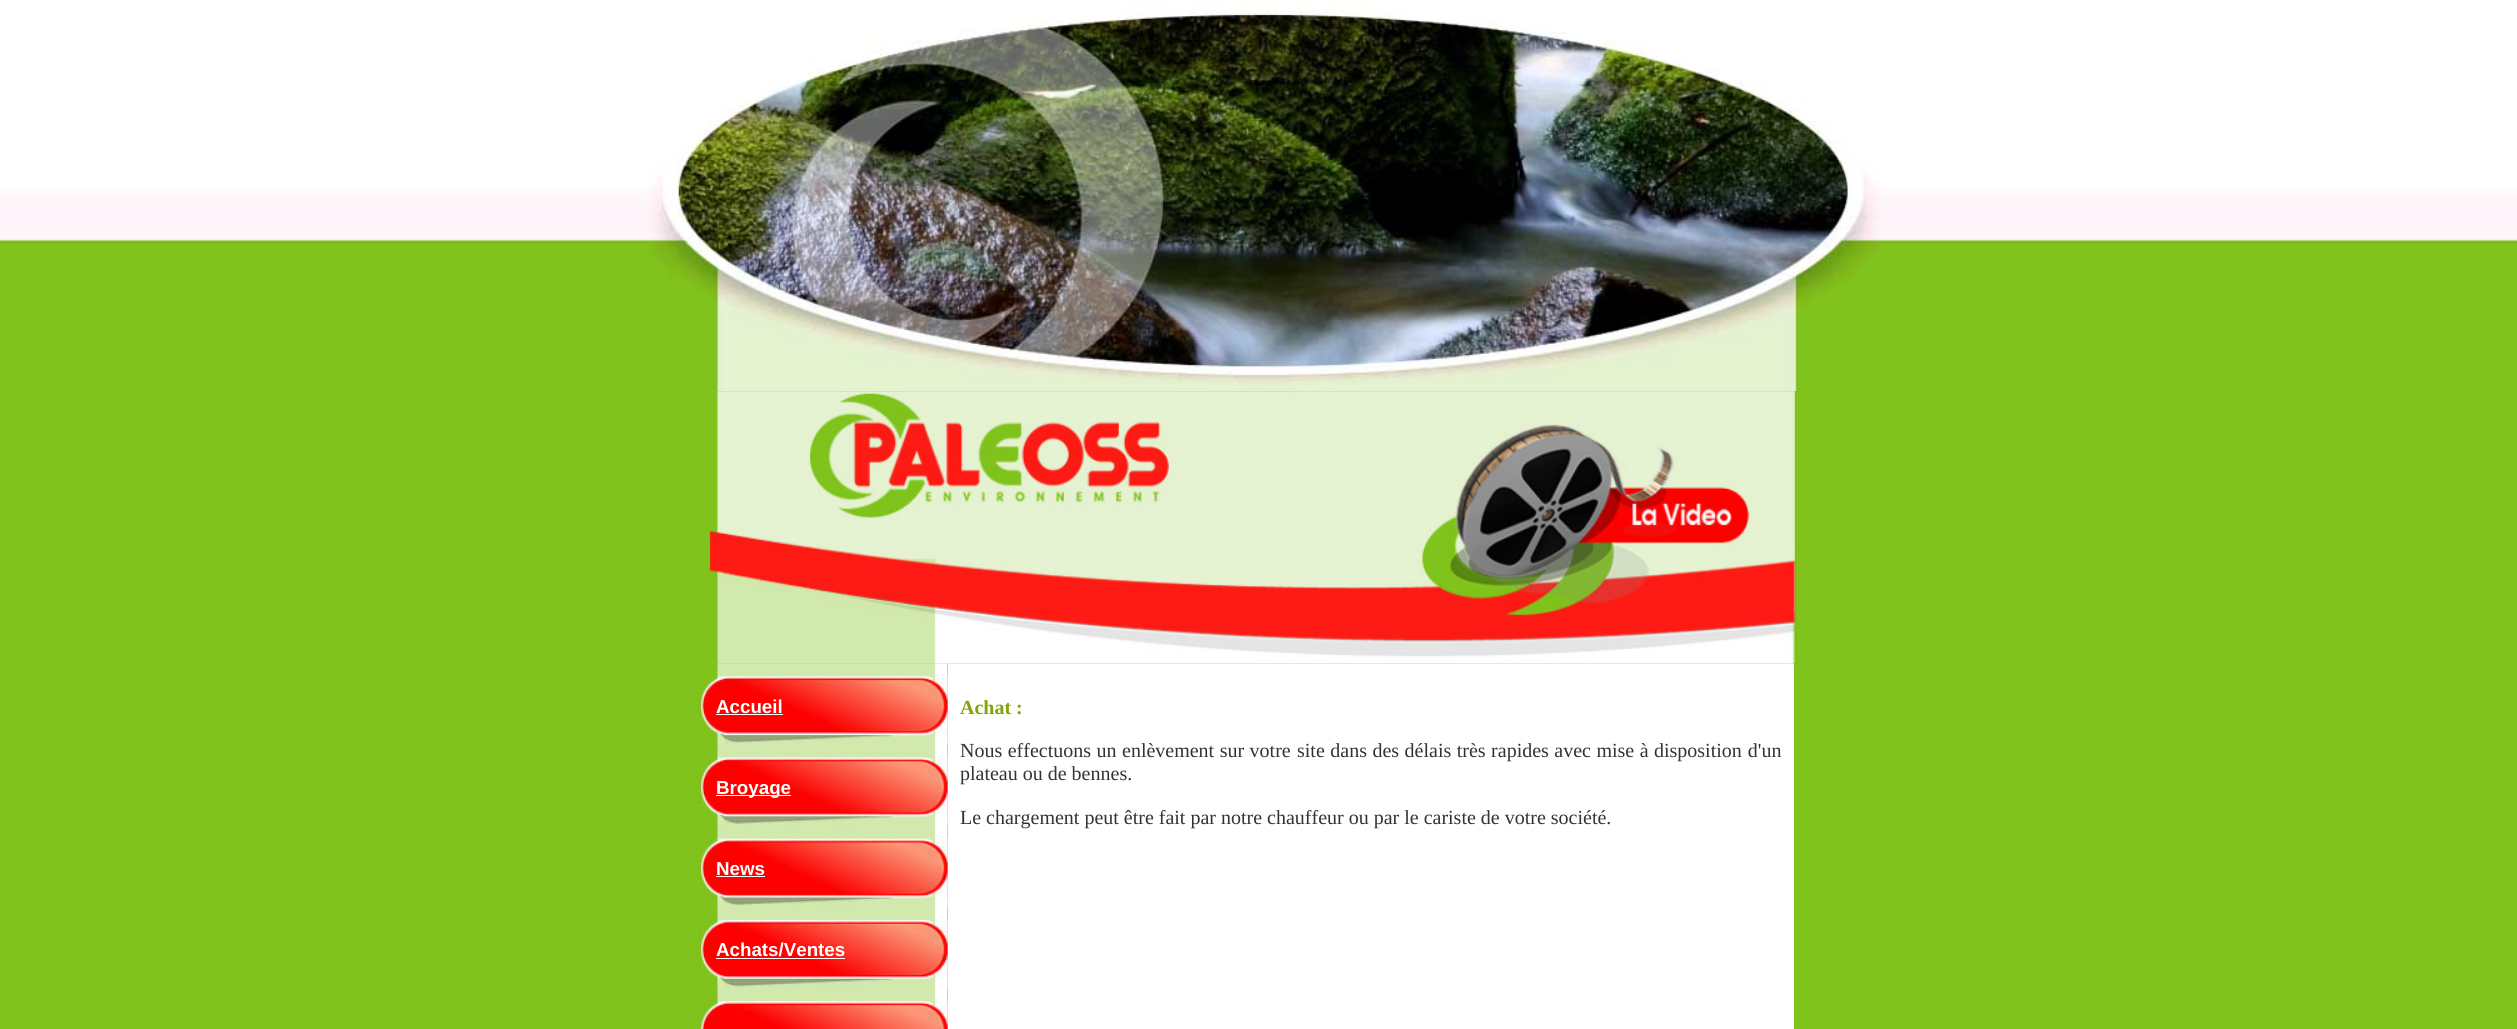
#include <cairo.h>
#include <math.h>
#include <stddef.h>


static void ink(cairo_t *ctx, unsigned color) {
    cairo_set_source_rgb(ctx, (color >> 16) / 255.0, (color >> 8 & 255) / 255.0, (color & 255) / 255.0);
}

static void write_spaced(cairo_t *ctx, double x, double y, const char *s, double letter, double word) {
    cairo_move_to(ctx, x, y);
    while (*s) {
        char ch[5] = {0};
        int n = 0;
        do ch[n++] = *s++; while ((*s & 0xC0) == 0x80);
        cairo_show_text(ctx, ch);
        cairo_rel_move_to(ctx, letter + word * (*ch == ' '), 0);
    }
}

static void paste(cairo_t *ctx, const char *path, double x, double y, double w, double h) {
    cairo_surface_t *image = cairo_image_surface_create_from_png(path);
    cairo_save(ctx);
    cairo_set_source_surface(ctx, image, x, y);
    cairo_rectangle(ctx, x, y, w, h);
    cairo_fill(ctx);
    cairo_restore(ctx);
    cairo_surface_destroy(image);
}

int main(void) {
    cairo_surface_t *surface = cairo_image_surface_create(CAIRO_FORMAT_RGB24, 2517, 1029);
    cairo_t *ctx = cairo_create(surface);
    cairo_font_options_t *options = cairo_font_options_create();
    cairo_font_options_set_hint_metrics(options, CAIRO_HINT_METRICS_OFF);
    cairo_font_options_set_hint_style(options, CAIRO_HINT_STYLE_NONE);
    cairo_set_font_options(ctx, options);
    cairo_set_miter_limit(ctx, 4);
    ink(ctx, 0x7FC31C);
    cairo_paint(ctx);
    paste(ctx, "media/1.png", 0, 0, 2517, 243);
    paste(ctx, "media/2.png", 647, 0, 1233, 392);
    paste(ctx, "media/4.png", 717, 663, 231, 366);
    paste(ctx, "media/3.png", 707, 391, 1091, 273);
    paste(ctx, "media/5.png", 697, 676, 251, 68);
    cairo_select_font_face(ctx, "Liberation Sans", CAIRO_FONT_SLANT_NORMAL, CAIRO_FONT_WEIGHT_BOLD);
    cairo_set_font_size(ctx, 18.75);
    ink(ctx, 0xFFFFFF);
    cairo_move_to(ctx, 716, 713);
    cairo_show_text(ctx, "Accueil");
    cairo_rectangle(ctx, 716, 714, 67, 1);
    cairo_fill(ctx);
    paste(ctx, "media/6.png", 697, 757, 251, 68);
    cairo_rectangle(ctx, 716, 795, 75, 1);
    cairo_fill(ctx);
    cairo_move_to(ctx, 716, 794);
    cairo_show_text(ctx, "Broyage");
    paste(ctx, "media/7.png", 697, 838, 251, 69);
    cairo_move_to(ctx, 716, 875);
    cairo_show_text(ctx, "News");
    cairo_rectangle(ctx, 716, 876, 49, 1);
    cairo_fill(ctx);
    paste(ctx, "media/8.png", 697, 920, 251, 68);
    cairo_move_to(ctx, 716, 956);
    cairo_show_text(ctx, "Achats/Ventes");
    cairo_rectangle(ctx, 716, 958, 129, 1);
    cairo_fill(ctx);
    paste(ctx, "media/9.png", 697, 1001, 251, 28);
    cairo_rectangle(ctx, 948, 664, 846, 365);
    cairo_fill(ctx);
    cairo_select_font_face(ctx, "Liberation Serif", CAIRO_FONT_SLANT_NORMAL, CAIRO_FONT_WEIGHT_BOLD);
    cairo_set_font_size(ctx, 20);
    ink(ctx, 0x82A30B);
    cairo_move_to(ctx, 960, 714);
    cairo_show_text(ctx, "Achat :");
    cairo_select_font_face(ctx, "Liberation Serif", CAIRO_FONT_SLANT_NORMAL, CAIRO_FONT_WEIGHT_NORMAL);
    ink(ctx, 0x333333);
    write_spaced(ctx, 960, 757, "Nous effectuons un enlèvement sur votre", 0, 0.5);
    write_spaced(ctx, 1297, 757, "site dans des délais très rapides avec mise à", 0, 0.5);
    write_spaced(ctx, 1654, 757, "disposition d'un", 0, 1);
    cairo_move_to(ctx, 960, 780);
    cairo_show_text(ctx, "plateau ou de bennes.");
    cairo_move_to(ctx, 960, 824);
    cairo_show_text(ctx, "Le chargement peut être fait par notre chauffeur ou par le cariste de votre société.");
    cairo_surface_write_to_png(surface, "image.png");
    cairo_font_options_destroy(options);
    cairo_destroy(ctx);
    cairo_surface_destroy(surface);
    return 0;
}
